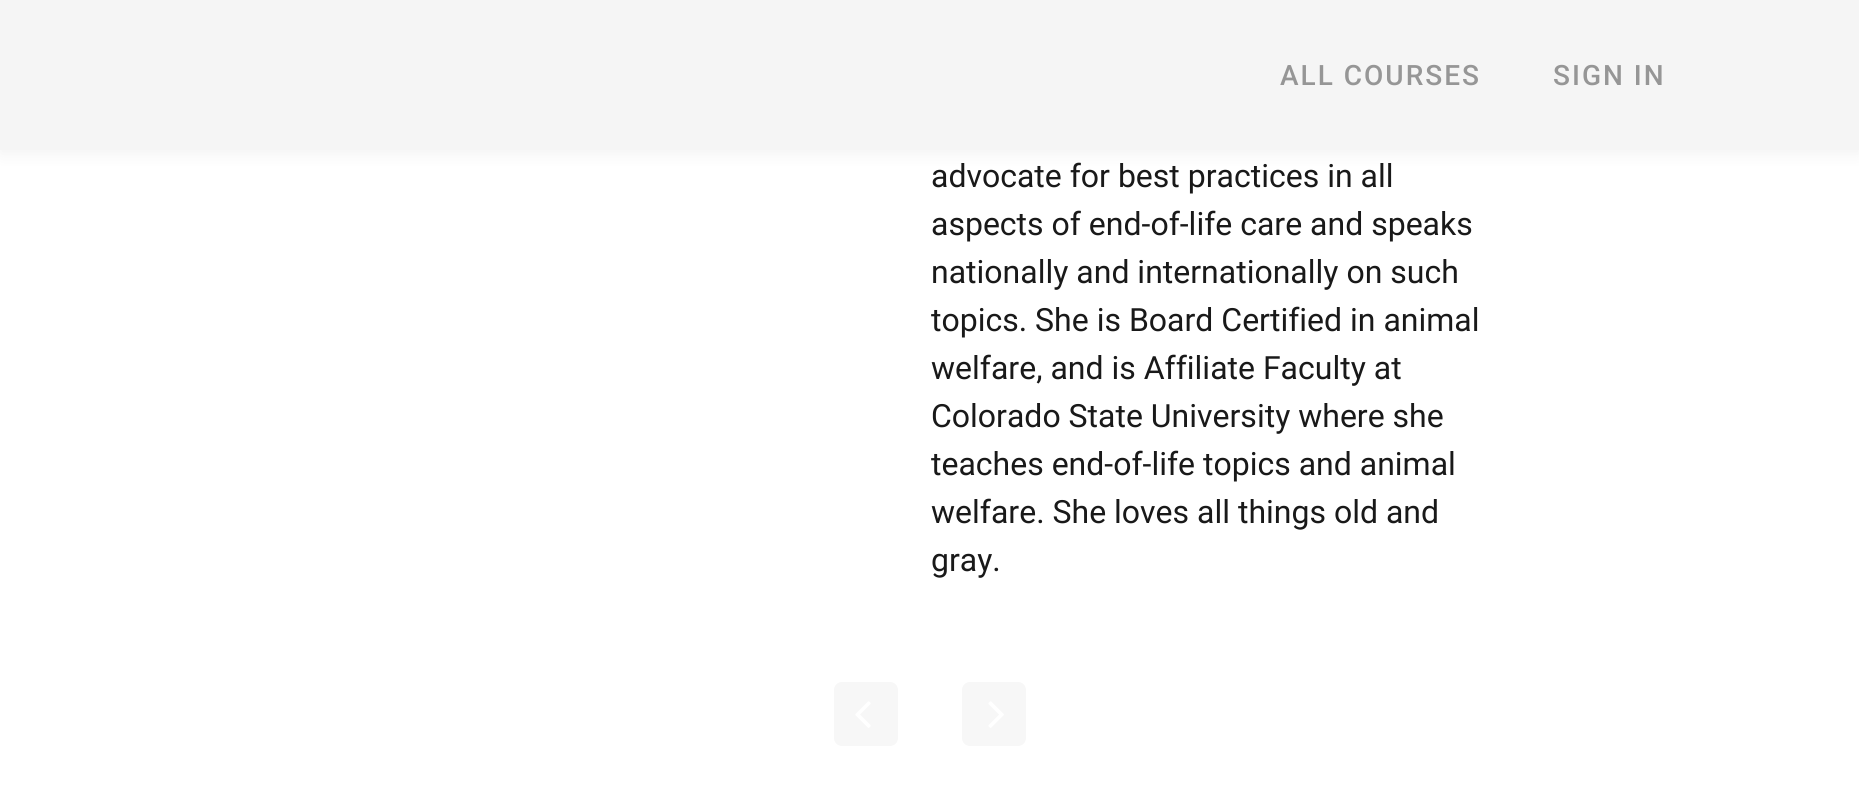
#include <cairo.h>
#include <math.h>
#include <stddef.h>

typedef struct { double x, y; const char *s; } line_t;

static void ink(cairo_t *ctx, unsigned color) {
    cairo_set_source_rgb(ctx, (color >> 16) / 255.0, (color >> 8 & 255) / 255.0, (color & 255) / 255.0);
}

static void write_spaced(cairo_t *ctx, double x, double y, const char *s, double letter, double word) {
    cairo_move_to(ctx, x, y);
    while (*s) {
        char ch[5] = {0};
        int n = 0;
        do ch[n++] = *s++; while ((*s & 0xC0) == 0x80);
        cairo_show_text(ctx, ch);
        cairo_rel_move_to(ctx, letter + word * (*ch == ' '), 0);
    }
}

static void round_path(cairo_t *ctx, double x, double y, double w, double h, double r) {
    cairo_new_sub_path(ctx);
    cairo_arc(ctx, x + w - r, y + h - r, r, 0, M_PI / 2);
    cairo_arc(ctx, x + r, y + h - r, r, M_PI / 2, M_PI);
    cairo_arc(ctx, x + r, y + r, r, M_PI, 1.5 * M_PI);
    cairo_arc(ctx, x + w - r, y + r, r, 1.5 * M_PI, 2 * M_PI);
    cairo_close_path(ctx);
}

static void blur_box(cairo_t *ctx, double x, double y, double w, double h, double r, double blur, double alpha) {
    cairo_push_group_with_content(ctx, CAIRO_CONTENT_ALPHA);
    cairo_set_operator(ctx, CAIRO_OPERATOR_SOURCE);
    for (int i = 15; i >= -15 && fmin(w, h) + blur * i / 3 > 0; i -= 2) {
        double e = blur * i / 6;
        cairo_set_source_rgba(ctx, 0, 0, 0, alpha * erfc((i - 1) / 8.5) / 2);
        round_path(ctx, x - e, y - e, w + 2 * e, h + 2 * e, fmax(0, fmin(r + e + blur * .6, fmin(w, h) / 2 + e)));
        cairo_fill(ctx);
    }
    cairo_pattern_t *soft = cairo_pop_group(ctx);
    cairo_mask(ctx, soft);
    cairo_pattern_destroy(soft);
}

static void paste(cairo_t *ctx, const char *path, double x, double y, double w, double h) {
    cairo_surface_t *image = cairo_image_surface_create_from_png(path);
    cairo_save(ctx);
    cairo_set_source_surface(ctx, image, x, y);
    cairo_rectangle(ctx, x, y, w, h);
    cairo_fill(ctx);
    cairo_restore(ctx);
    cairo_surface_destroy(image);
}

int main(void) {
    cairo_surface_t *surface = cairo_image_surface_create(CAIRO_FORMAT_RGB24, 1859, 806);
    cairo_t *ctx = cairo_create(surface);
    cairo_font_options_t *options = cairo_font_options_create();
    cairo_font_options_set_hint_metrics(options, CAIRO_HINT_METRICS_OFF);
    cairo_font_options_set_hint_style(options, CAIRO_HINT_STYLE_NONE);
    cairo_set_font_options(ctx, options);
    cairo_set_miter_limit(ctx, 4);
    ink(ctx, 0xFFFFFF);
    cairo_paint(ctx);
    ink(ctx, 0x000000);
    blur_box(ctx, 0, 4, 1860, 150, 0, 8, 0.05);
    ink(ctx, 0xF5F5F5);
    cairo_rectangle(ctx, 0, 0, 1859, 150);
    cairo_fill(ctx);
    cairo_select_font_face(ctx, "Roboto Medium", CAIRO_FONT_SLANT_NORMAL, CAIRO_FONT_WEIGHT_NORMAL);
    cairo_set_font_size(ctx, 28);
    ink(ctx, 0x969696);
    write_spaced(ctx, 1280, 85, "ALL COURSES", 2, 0);
    write_spaced(ctx, 1553, 85, "SIGN IN", 2, 0);
    cairo_select_font_face(ctx, "Roboto", CAIRO_FONT_SLANT_NORMAL, CAIRO_FONT_WEIGHT_NORMAL);
    cairo_set_font_size(ctx, 32);
    ink(ctx, 0x191919);
    {
        static const line_t items[] = {
            {931, 187, "advocate for best practices in all"},
            {931, 235, "aspects of end-of-life care and speaks"},
            {931, 283, "nationally and internationally on such"},
            {931, 331, "topics. She is Board Certified in animal"},
            {931, 379, "welfare, and is Affiliate Faculty at"},
            {931, 427, "Colorado State University where she"},
            {931, 475, "teaches end-of-life topics and animal"},
            {931, 523, "welfare. She loves all things old and"},
            {931, 571, "gray."},
        };
        for (size_t i = 0; i < sizeof items / sizeof *items; i++) {
            cairo_move_to(ctx, items[i].x, items[i].y);
            cairo_show_text(ctx, items[i].s);
        }
    }
    ink(ctx, 0xF7F7F7);
    round_path(ctx, 834, 682, 64, 64, 8);
    cairo_fill(ctx);
    paste(ctx, "media/1.png", 855, 701, 16, 27);
    round_path(ctx, 962, 682, 64, 64, 8);
    cairo_fill(ctx);
    paste(ctx, "media/2.png", 988, 701, 16, 27);
    cairo_surface_write_to_png(surface, "image.png");
    cairo_font_options_destroy(options);
    cairo_destroy(ctx);
    cairo_surface_destroy(surface);
    return 0;
}
